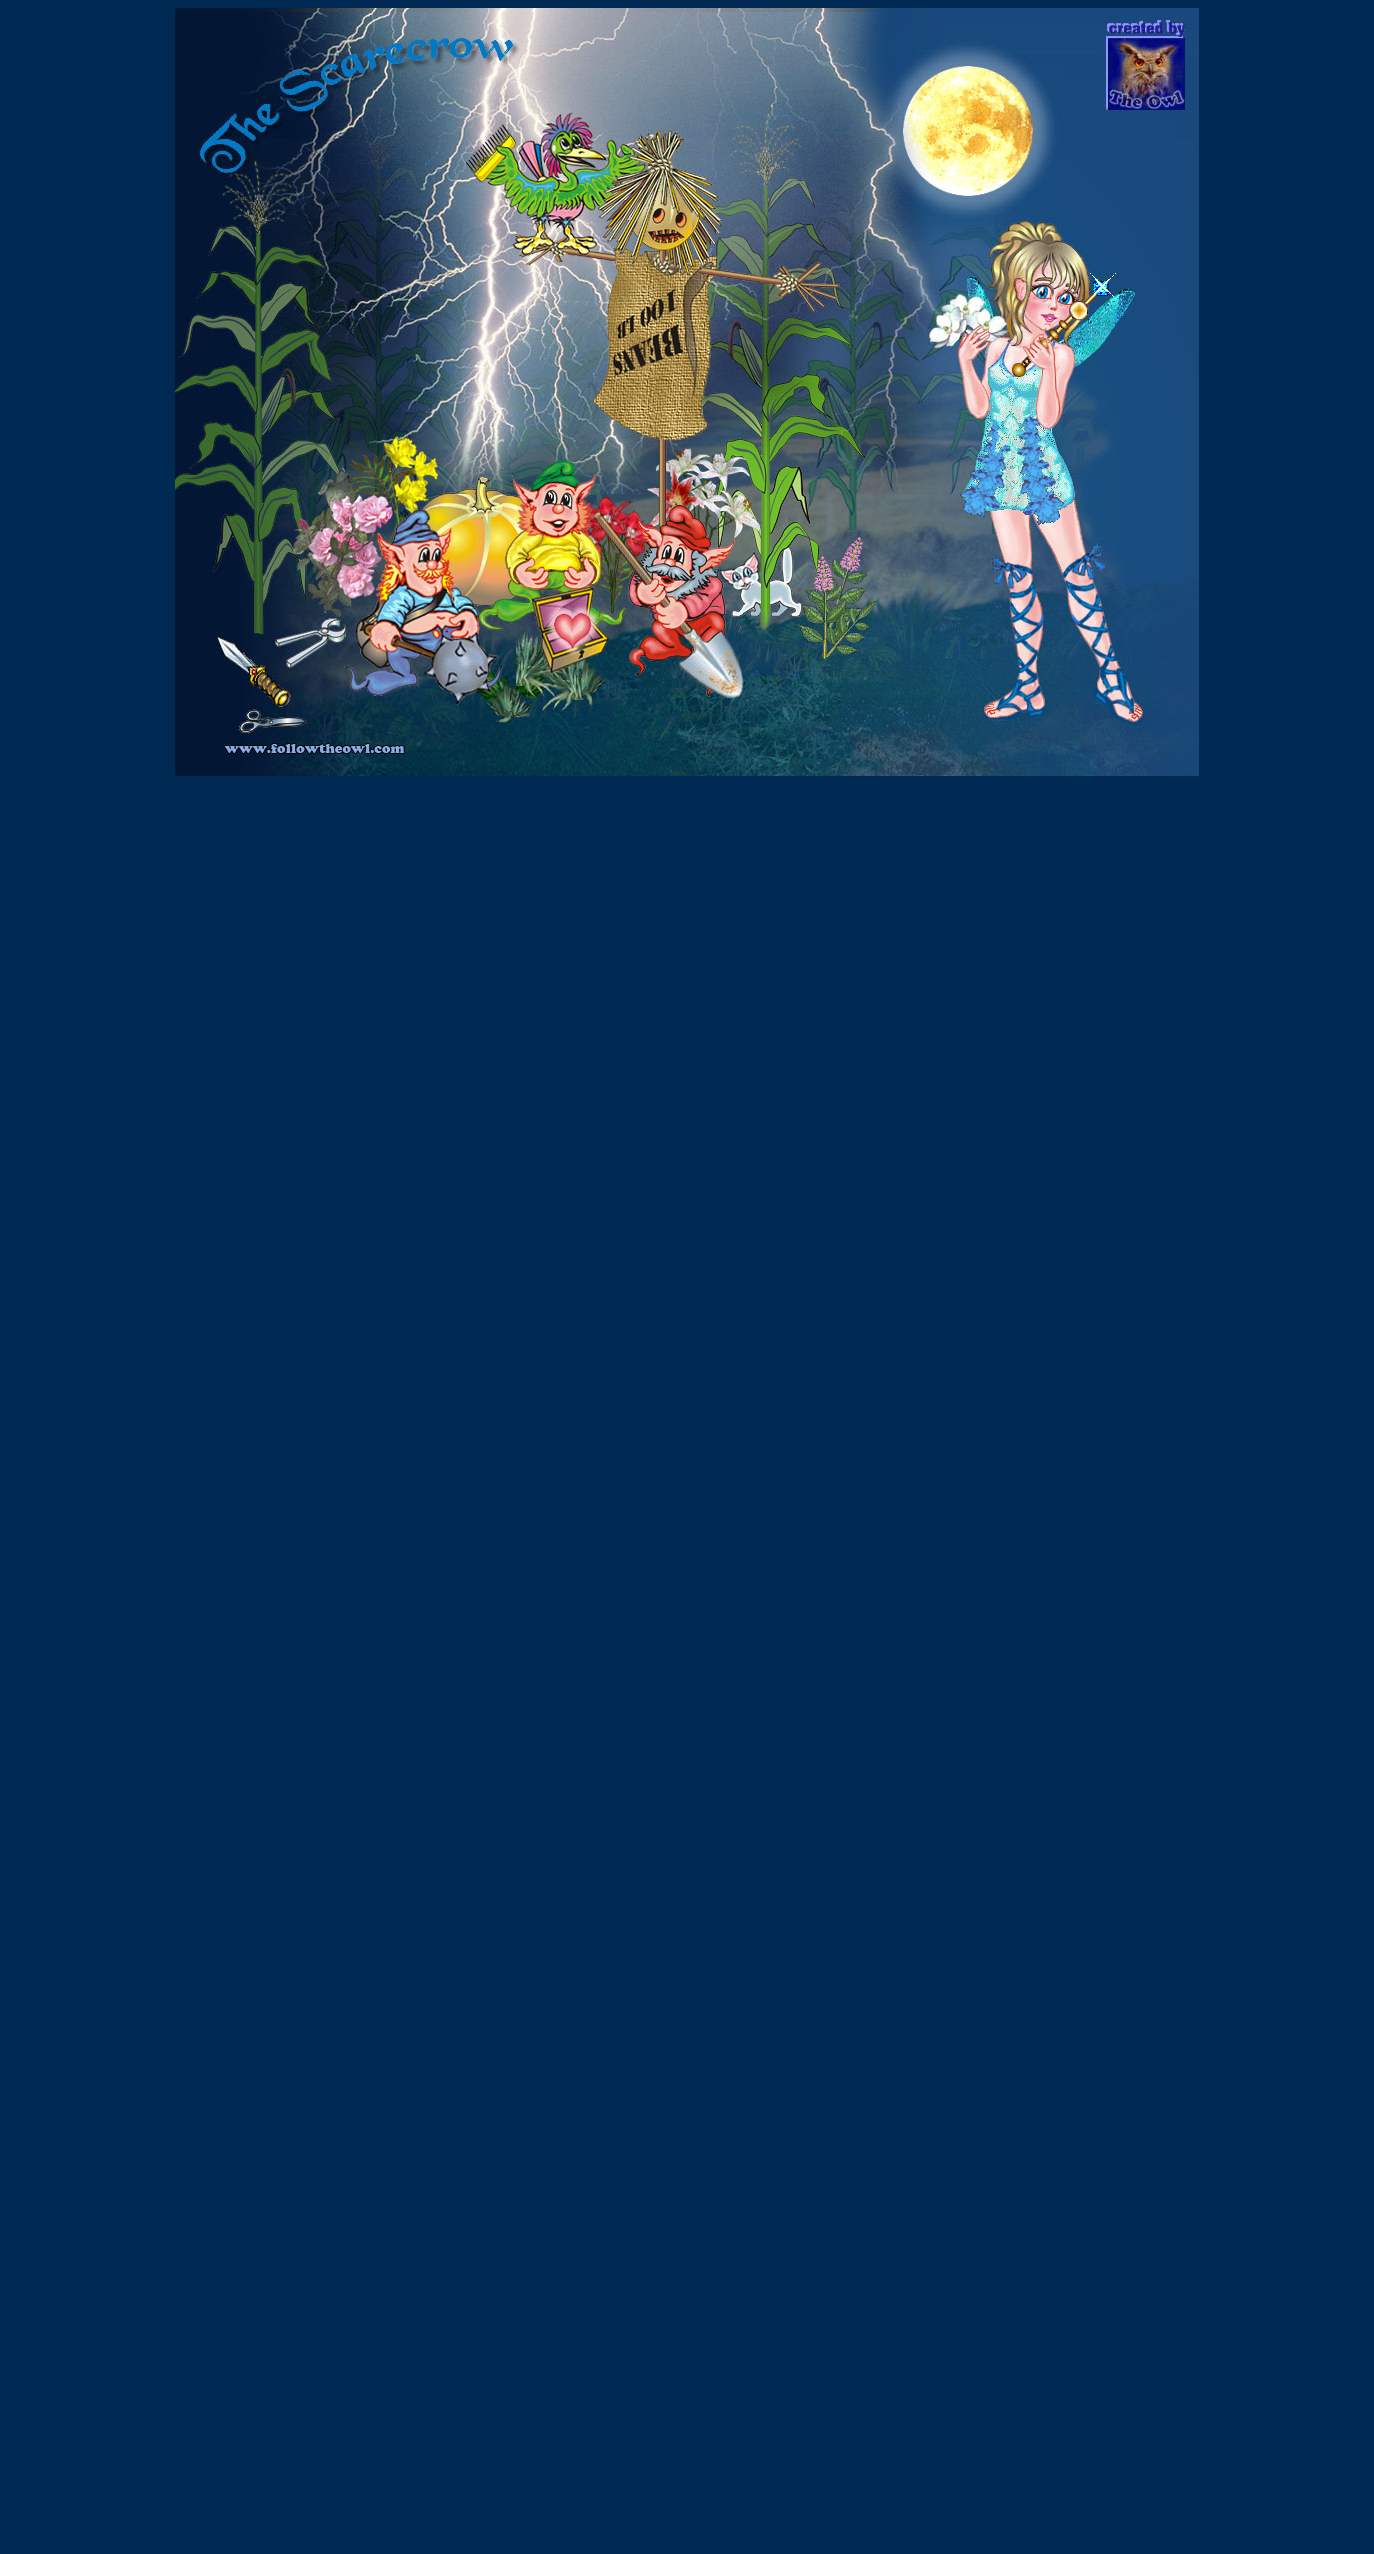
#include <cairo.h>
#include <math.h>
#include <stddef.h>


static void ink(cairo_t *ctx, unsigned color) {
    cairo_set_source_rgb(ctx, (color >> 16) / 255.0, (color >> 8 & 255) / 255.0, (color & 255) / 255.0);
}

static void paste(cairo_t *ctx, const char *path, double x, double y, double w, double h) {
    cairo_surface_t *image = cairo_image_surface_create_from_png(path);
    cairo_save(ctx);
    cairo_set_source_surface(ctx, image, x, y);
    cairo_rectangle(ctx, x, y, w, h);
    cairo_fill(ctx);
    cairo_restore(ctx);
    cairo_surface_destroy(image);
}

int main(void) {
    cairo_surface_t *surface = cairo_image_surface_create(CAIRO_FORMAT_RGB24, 1374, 2554);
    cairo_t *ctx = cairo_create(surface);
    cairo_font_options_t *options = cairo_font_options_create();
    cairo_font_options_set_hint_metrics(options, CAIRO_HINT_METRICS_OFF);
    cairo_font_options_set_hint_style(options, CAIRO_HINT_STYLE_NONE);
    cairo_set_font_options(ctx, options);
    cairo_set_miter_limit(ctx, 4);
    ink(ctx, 0x002953);
    cairo_paint(ctx);
    paste(ctx, "media/1.png", 175, 8, 1024, 768);
    cairo_surface_write_to_png(surface, "image.png");
    cairo_font_options_destroy(options);
    cairo_destroy(ctx);
    cairo_surface_destroy(surface);
    return 0;
}
